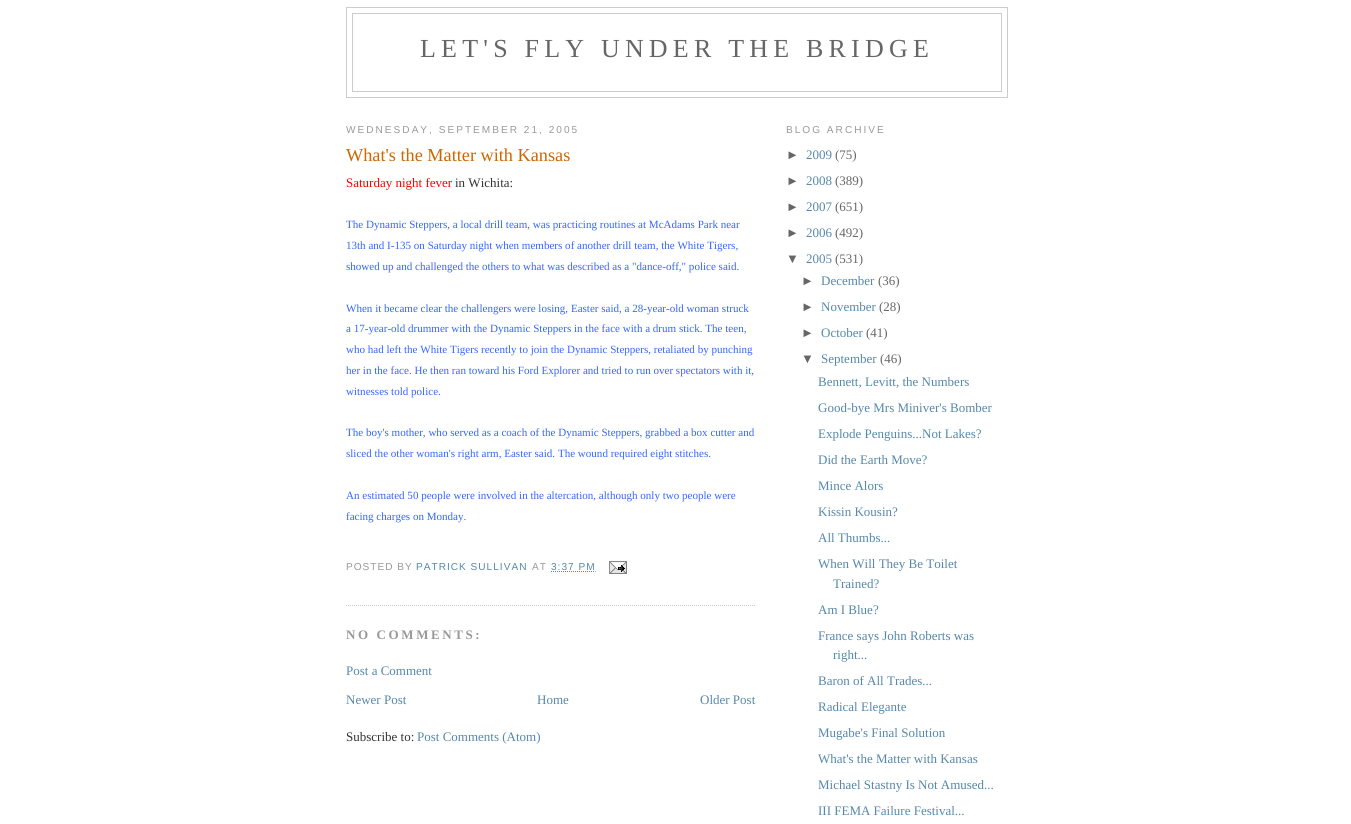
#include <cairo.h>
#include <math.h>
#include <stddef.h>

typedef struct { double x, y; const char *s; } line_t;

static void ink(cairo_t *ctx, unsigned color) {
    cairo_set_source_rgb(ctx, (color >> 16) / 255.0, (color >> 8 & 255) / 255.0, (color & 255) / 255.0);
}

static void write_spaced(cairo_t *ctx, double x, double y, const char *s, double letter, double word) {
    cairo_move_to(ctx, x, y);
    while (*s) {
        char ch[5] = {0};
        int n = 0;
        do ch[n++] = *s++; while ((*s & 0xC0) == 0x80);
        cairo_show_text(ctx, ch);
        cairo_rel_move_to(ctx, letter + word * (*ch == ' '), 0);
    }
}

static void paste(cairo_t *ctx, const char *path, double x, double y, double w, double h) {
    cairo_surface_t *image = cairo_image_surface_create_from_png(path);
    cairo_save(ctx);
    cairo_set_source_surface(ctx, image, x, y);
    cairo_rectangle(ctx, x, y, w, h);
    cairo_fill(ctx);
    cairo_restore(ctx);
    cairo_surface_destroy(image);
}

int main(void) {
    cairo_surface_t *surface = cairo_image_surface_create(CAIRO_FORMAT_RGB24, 1351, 824);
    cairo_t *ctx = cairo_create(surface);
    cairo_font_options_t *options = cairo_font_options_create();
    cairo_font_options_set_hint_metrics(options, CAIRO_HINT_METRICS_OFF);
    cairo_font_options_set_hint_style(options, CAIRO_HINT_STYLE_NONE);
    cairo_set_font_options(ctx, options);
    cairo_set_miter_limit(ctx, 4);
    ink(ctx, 0xFFFFFF);
    cairo_paint(ctx);
    cairo_rectangle(ctx, 346.5, 7.5, 661, 90);
    ink(ctx, 0xCCCCCC);
    cairo_set_line_width(ctx, 1);
    cairo_stroke(ctx);
    cairo_rectangle(ctx, 352.5, 13.5, 649, 78);
    cairo_stroke(ctx);
    cairo_select_font_face(ctx, "Liberation Serif", CAIRO_FONT_SLANT_NORMAL, CAIRO_FONT_WEIGHT_NORMAL);
    cairo_set_font_size(ctx, 26);
    ink(ctx, 0x666666);
    write_spaced(ctx, 420, 57, "LET'S FLY UNDER THE BRIDGE", 5.2, 0);
    cairo_select_font_face(ctx, "Liberation Sans", CAIRO_FONT_SLANT_NORMAL, CAIRO_FONT_WEIGHT_NORMAL);
    cairo_set_font_size(ctx, 10.1);
    ink(ctx, 0x999999);
    write_spaced(ctx, 346, 133, "WEDNESDAY, SEPTEMBER 21, 2005", 2, 0);
    cairo_new_path(ctx);
    cairo_move_to(ctx, 346, 605.5);
    cairo_line_to(ctx, 756, 605.5);
    ink(ctx, 0xCCCCCC);
    cairo_set_dash(ctx, (double[]){1, 1}, 2, 0);
    cairo_stroke(ctx);
    cairo_select_font_face(ctx, "Liberation Serif", CAIRO_FONT_SLANT_NORMAL, CAIRO_FONT_WEIGHT_NORMAL);
    cairo_set_font_size(ctx, 18.25);
    ink(ctx, 0xCC6600);
    cairo_move_to(ctx, 346, 161);
    cairo_show_text(ctx, "What's the Matter with Kansas");
    cairo_set_font_size(ctx, 13);
    ink(ctx, 0xFF0000);
    cairo_move_to(ctx, 346, 187);
    cairo_show_text(ctx, "Saturday night fever");
    ink(ctx, 0x333333);
    cairo_move_to(ctx, 455, 187);
    cairo_show_text(ctx, "in Wichita:");
    cairo_save(ctx);
    cairo_rectangle(ctx, 346, 108, 410, 685);
    cairo_clip(ctx);
    cairo_set_font_size(ctx, 11.05);
    ink(ctx, 0x3366FF);
    cairo_move_to(ctx, 346, 228);
    cairo_show_text(ctx, "The Dynamic Steppers, a local drill team, was practicing routines at McAdams Park near");
    cairo_restore(ctx);
    cairo_set_font_size(ctx, 11.05);
    ink(ctx, 0x3366FF);
    {
        static const line_t items[] = {
            {346, 249, "13th and I-135 on Saturday night when members of another drill team, the White Tigers,"},
            {346, 270, "showed up and challenged the others to what was described as a \"dance-off,\" police said."},
            {346, 312, "When it became clear the challengers were losing, Easter said, a 28-year-old woman struck"},
            {346, 332, "a 17-year-old drummer with the Dynamic Steppers in the face with a drum stick. The teen,"},
            {346, 353, "who had left the White Tigers recently to join the Dynamic Steppers, retaliated by punching"},
            {346, 374, "her in the face. He then ran toward his Ford Explorer and tried to run over spectators with it,"},
            {346, 395, "witnesses told police."},
        };
        for (size_t i = 0; i < sizeof items / sizeof *items; i++) {
            cairo_move_to(ctx, items[i].x, items[i].y);
            cairo_show_text(ctx, items[i].s);
        }
    }
    cairo_save(ctx);
    cairo_rectangle(ctx, 346, 108, 410, 685);
    cairo_clip(ctx);
    cairo_move_to(ctx, 346, 436);
    cairo_show_text(ctx, "The boy's mother, who served as a coach of the Dynamic Steppers, grabbed a box cutter and");
    cairo_restore(ctx);
    {
        static const line_t items[] = {
            {346, 457, "sliced the other woman's right arm, Easter said. The wound required eight stitches."},
            {346, 499, "An estimated 50 people were involved in the altercation, although only two people were"},
            {346, 520, "facing charges on Monday."},
        };
        for (size_t i = 0; i < sizeof items / sizeof *items; i++) {
            cairo_move_to(ctx, items[i].x, items[i].y);
            cairo_show_text(ctx, items[i].s);
        }
    }
    cairo_select_font_face(ctx, "Liberation Sans", CAIRO_FONT_SLANT_NORMAL, CAIRO_FONT_WEIGHT_NORMAL);
    cairo_set_font_size(ctx, 10.1);
    ink(ctx, 0x999999);
    write_spaced(ctx, 346, 570, "POSTED BY", 1, 0);
    ink(ctx, 0x5588AA);
    write_spaced(ctx, 416, 570, "PATRICK SULLIVAN", 1, 0);
    ink(ctx, 0x999999);
    write_spaced(ctx, 532, 570, "AT", 1, 0);
    ink(ctx, 0x5588AA);
    write_spaced(ctx, 551, 570, "3:37 PM", 1, 0);
    cairo_new_path(ctx);
    cairo_move_to(ctx, 551, 571.5);
    cairo_line_to(ctx, 595.5, 571.5);
    cairo_stroke(ctx);
    paste(ctx, "media/1.png", 609, 561, 18, 13);
    cairo_select_font_face(ctx, "Liberation Serif", CAIRO_FONT_SLANT_NORMAL, CAIRO_FONT_WEIGHT_BOLD);
    cairo_set_font_size(ctx, 13);
    ink(ctx, 0x999999);
    write_spaced(ctx, 346, 639, "NO COMMENTS:", 2.6, 0);
    cairo_select_font_face(ctx, "Liberation Serif", CAIRO_FONT_SLANT_NORMAL, CAIRO_FONT_WEIGHT_NORMAL);
    ink(ctx, 0x5588AA);
    {
        static const line_t items[] = {
            {346, 675, "Post a Comment"},
            {346, 704, "Newer Post"},
            {537, 704, "Home"},
            {700, 704, "Older Post"},
        };
        for (size_t i = 0; i < sizeof items / sizeof *items; i++) {
            cairo_move_to(ctx, items[i].x, items[i].y);
            cairo_show_text(ctx, items[i].s);
        }
    }
    ink(ctx, 0x333333);
    cairo_move_to(ctx, 346, 741);
    cairo_show_text(ctx, "Subscribe to:");
    ink(ctx, 0x5588AA);
    cairo_move_to(ctx, 417, 741);
    cairo_show_text(ctx, "Post Comments (Atom)");
    cairo_select_font_face(ctx, "Liberation Sans", CAIRO_FONT_SLANT_NORMAL, CAIRO_FONT_WEIGHT_NORMAL);
    cairo_set_font_size(ctx, 10.1);
    ink(ctx, 0x999999);
    write_spaced(ctx, 786, 133, "BLOG ARCHIVE", 2, 0);
    cairo_set_font_size(ctx, 13);
    ink(ctx, 0x666666);
    cairo_move_to(ctx, 786, 159);
    cairo_show_text(ctx, "►");
    cairo_select_font_face(ctx, "Liberation Serif", CAIRO_FONT_SLANT_NORMAL, CAIRO_FONT_WEIGHT_NORMAL);
    ink(ctx, 0x5588AA);
    cairo_move_to(ctx, 806, 159);
    cairo_show_text(ctx, "2009");
    ink(ctx, 0x666666);
    cairo_move_to(ctx, 835, 159);
    cairo_show_text(ctx, "(75)");
    cairo_select_font_face(ctx, "Liberation Sans", CAIRO_FONT_SLANT_NORMAL, CAIRO_FONT_WEIGHT_NORMAL);
    cairo_move_to(ctx, 786, 185);
    cairo_show_text(ctx, "►");
    cairo_select_font_face(ctx, "Liberation Serif", CAIRO_FONT_SLANT_NORMAL, CAIRO_FONT_WEIGHT_NORMAL);
    ink(ctx, 0x5588AA);
    cairo_move_to(ctx, 806, 185);
    cairo_show_text(ctx, "2008");
    ink(ctx, 0x666666);
    cairo_move_to(ctx, 835, 185);
    cairo_show_text(ctx, "(389)");
    cairo_select_font_face(ctx, "Liberation Sans", CAIRO_FONT_SLANT_NORMAL, CAIRO_FONT_WEIGHT_NORMAL);
    cairo_move_to(ctx, 786, 211);
    cairo_show_text(ctx, "►");
    cairo_select_font_face(ctx, "Liberation Serif", CAIRO_FONT_SLANT_NORMAL, CAIRO_FONT_WEIGHT_NORMAL);
    ink(ctx, 0x5588AA);
    cairo_move_to(ctx, 806, 211);
    cairo_show_text(ctx, "2007");
    ink(ctx, 0x666666);
    cairo_move_to(ctx, 835, 211);
    cairo_show_text(ctx, "(651)");
    cairo_select_font_face(ctx, "Liberation Sans", CAIRO_FONT_SLANT_NORMAL, CAIRO_FONT_WEIGHT_NORMAL);
    cairo_move_to(ctx, 786, 237);
    cairo_show_text(ctx, "►");
    cairo_select_font_face(ctx, "Liberation Serif", CAIRO_FONT_SLANT_NORMAL, CAIRO_FONT_WEIGHT_NORMAL);
    ink(ctx, 0x5588AA);
    cairo_move_to(ctx, 806, 237);
    cairo_show_text(ctx, "2006");
    ink(ctx, 0x666666);
    cairo_move_to(ctx, 835, 237);
    cairo_show_text(ctx, "(492)");
    cairo_select_font_face(ctx, "Liberation Sans", CAIRO_FONT_SLANT_NORMAL, CAIRO_FONT_WEIGHT_NORMAL);
    cairo_move_to(ctx, 786, 263);
    cairo_show_text(ctx, "▼");
    cairo_select_font_face(ctx, "Liberation Serif", CAIRO_FONT_SLANT_NORMAL, CAIRO_FONT_WEIGHT_NORMAL);
    ink(ctx, 0x5588AA);
    cairo_move_to(ctx, 806, 263);
    cairo_show_text(ctx, "2005");
    ink(ctx, 0x666666);
    cairo_move_to(ctx, 835, 263);
    cairo_show_text(ctx, "(531)");
    cairo_select_font_face(ctx, "Liberation Sans", CAIRO_FONT_SLANT_NORMAL, CAIRO_FONT_WEIGHT_NORMAL);
    cairo_move_to(ctx, 801, 285);
    cairo_show_text(ctx, "►");
    cairo_select_font_face(ctx, "Liberation Serif", CAIRO_FONT_SLANT_NORMAL, CAIRO_FONT_WEIGHT_NORMAL);
    ink(ctx, 0x5588AA);
    cairo_move_to(ctx, 821, 285);
    cairo_show_text(ctx, "December");
    ink(ctx, 0x666666);
    cairo_move_to(ctx, 878, 285);
    cairo_show_text(ctx, "(36)");
    cairo_select_font_face(ctx, "Liberation Sans", CAIRO_FONT_SLANT_NORMAL, CAIRO_FONT_WEIGHT_NORMAL);
    cairo_move_to(ctx, 801, 311);
    cairo_show_text(ctx, "►");
    cairo_select_font_face(ctx, "Liberation Serif", CAIRO_FONT_SLANT_NORMAL, CAIRO_FONT_WEIGHT_NORMAL);
    ink(ctx, 0x5588AA);
    cairo_move_to(ctx, 821, 311);
    cairo_show_text(ctx, "November");
    ink(ctx, 0x666666);
    cairo_move_to(ctx, 879, 311);
    cairo_show_text(ctx, "(28)");
    cairo_select_font_face(ctx, "Liberation Sans", CAIRO_FONT_SLANT_NORMAL, CAIRO_FONT_WEIGHT_NORMAL);
    cairo_move_to(ctx, 801, 337);
    cairo_show_text(ctx, "►");
    cairo_select_font_face(ctx, "Liberation Serif", CAIRO_FONT_SLANT_NORMAL, CAIRO_FONT_WEIGHT_NORMAL);
    ink(ctx, 0x5588AA);
    cairo_move_to(ctx, 821, 337);
    cairo_show_text(ctx, "October");
    ink(ctx, 0x666666);
    cairo_move_to(ctx, 866, 337);
    cairo_show_text(ctx, "(41)");
    cairo_select_font_face(ctx, "Liberation Sans", CAIRO_FONT_SLANT_NORMAL, CAIRO_FONT_WEIGHT_NORMAL);
    cairo_move_to(ctx, 801, 363);
    cairo_show_text(ctx, "▼");
    cairo_select_font_face(ctx, "Liberation Serif", CAIRO_FONT_SLANT_NORMAL, CAIRO_FONT_WEIGHT_NORMAL);
    ink(ctx, 0x5588AA);
    cairo_move_to(ctx, 821, 363);
    cairo_show_text(ctx, "September");
    ink(ctx, 0x666666);
    cairo_move_to(ctx, 880, 363);
    cairo_show_text(ctx, "(46)");
    ink(ctx, 0x5588AA);
    {
        static const line_t items[] = {
            {818, 386, "Bennett, Levitt, the Numbers"},
            {818, 412, "Good-bye Mrs Miniver's Bomber"},
            {818, 438, "Explode Penguins...Not Lakes?"},
            {818, 464, "Did the Earth Move?"},
            {818, 490, "Mince Alors"},
            {818, 516, "Kissin Kousin?"},
            {818, 542, "All Thumbs..."},
            {818, 568, "When Will They Be Toilet"},
            {833, 588, "Trained?"},
            {818, 614, "Am I Blue?"},
            {818, 640, "France says John Roberts was"},
            {833, 659, "right..."},
            {818, 685, "Baron of All Trades..."},
            {818, 711, "Radical Elegante"},
            {818, 737, "Mugabe's Final Solution"},
            {818, 763, "What's the Matter with Kansas"},
            {818, 789, "Michael Stastny Is Not Amused..."},
            {818, 815, "III FEMA Failure Festival..."},
        };
        for (size_t i = 0; i < sizeof items / sizeof *items; i++) {
            cairo_move_to(ctx, items[i].x, items[i].y);
            cairo_show_text(ctx, items[i].s);
        }
    }
    cairo_surface_write_to_png(surface, "image.png");
    cairo_font_options_destroy(options);
    cairo_destroy(ctx);
    cairo_surface_destroy(surface);
    return 0;
}
